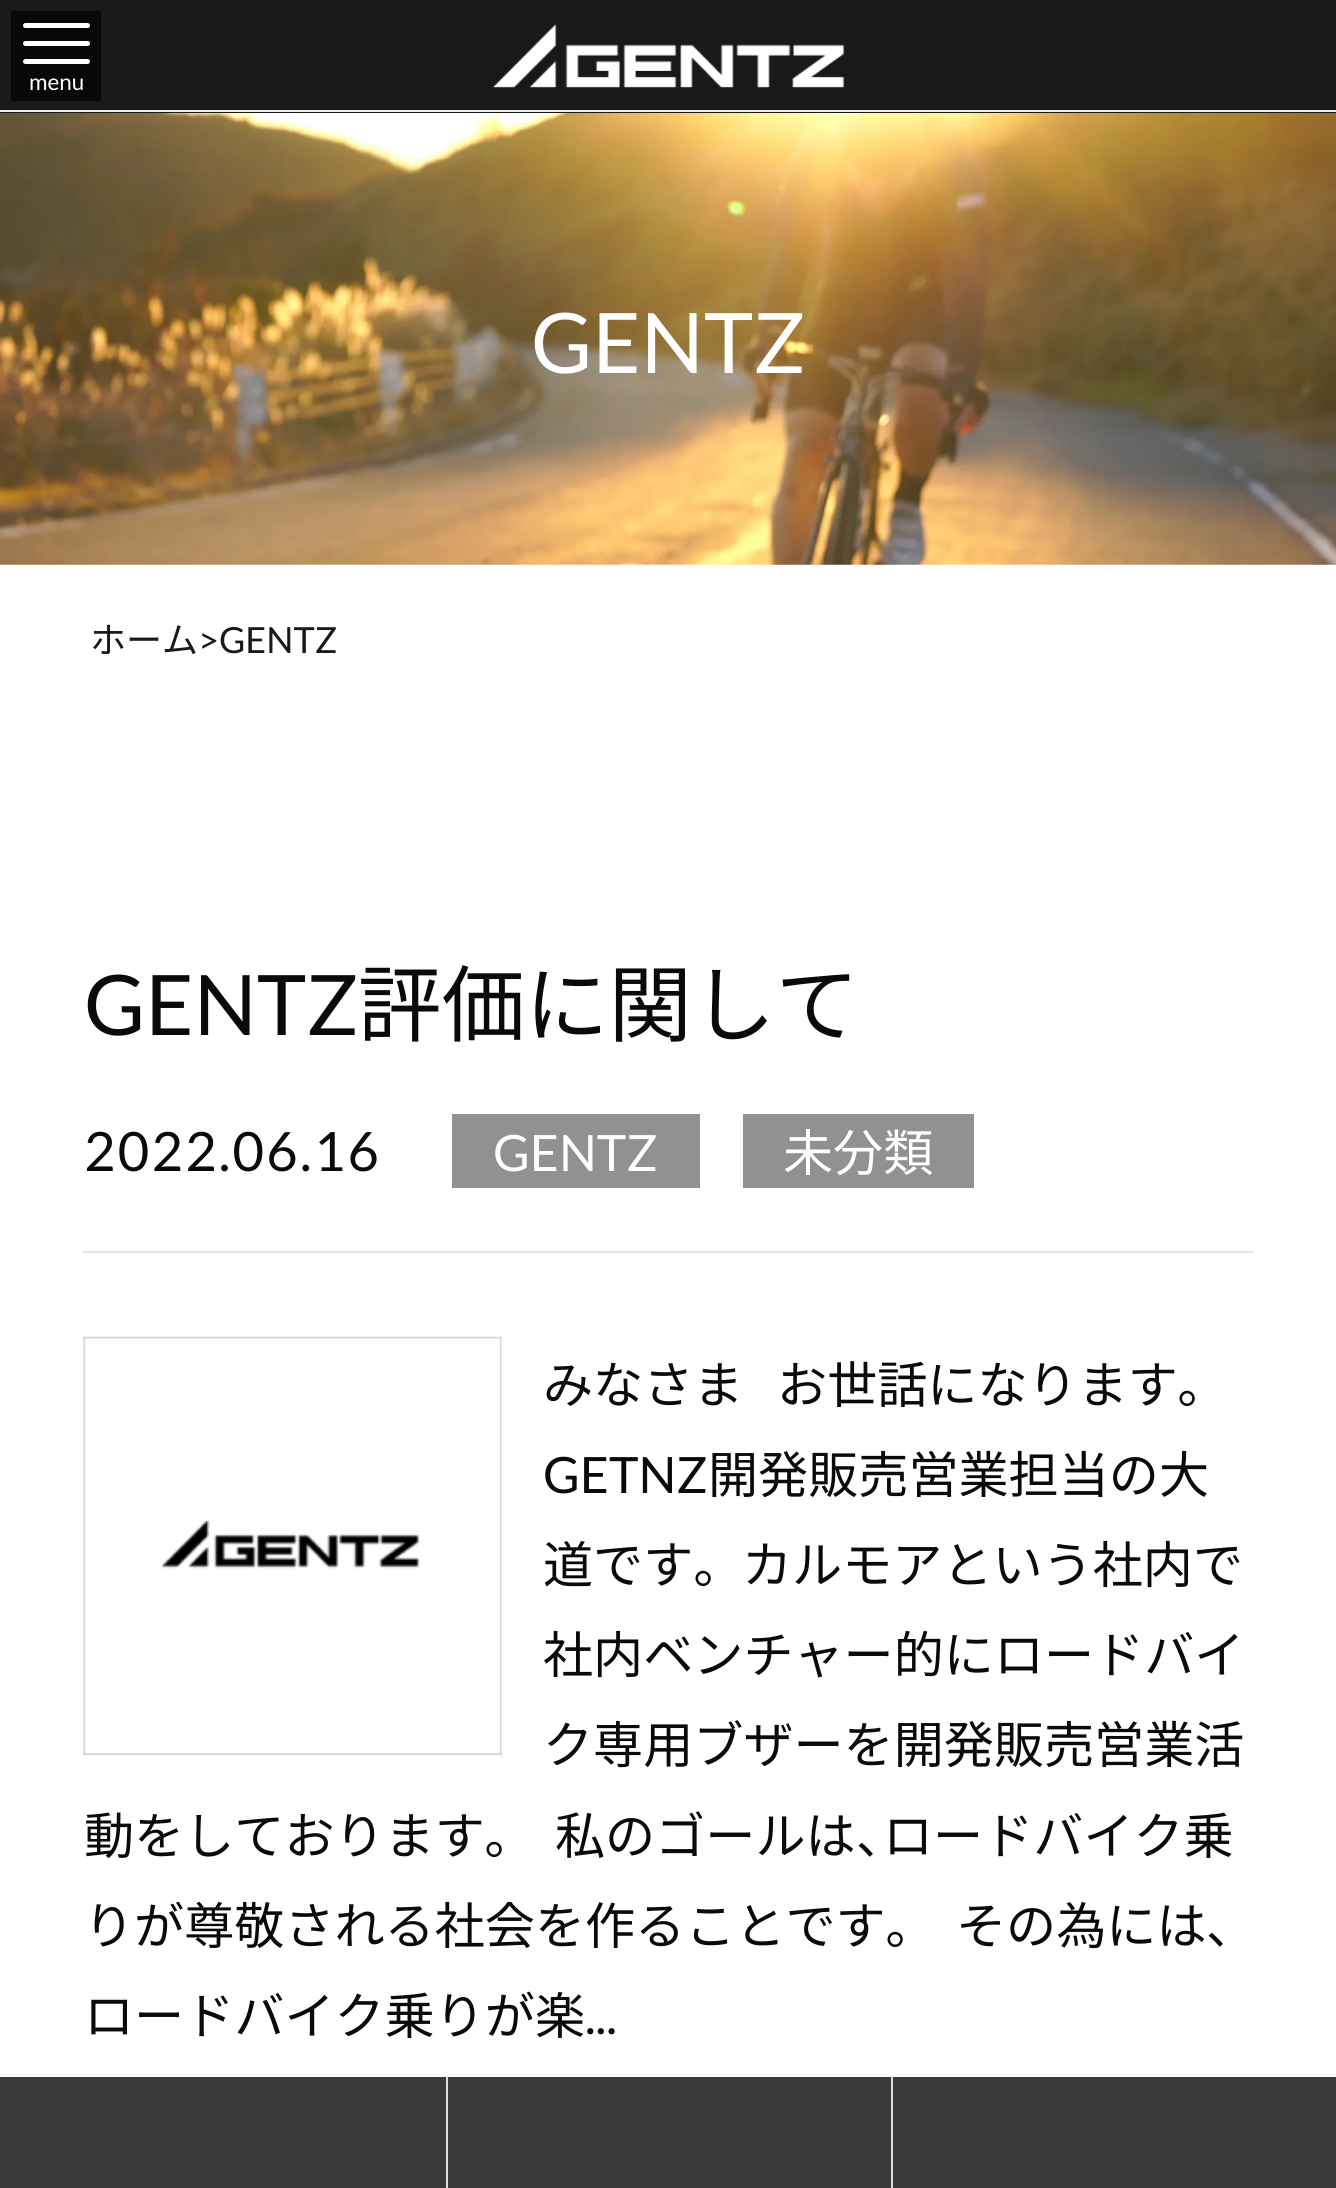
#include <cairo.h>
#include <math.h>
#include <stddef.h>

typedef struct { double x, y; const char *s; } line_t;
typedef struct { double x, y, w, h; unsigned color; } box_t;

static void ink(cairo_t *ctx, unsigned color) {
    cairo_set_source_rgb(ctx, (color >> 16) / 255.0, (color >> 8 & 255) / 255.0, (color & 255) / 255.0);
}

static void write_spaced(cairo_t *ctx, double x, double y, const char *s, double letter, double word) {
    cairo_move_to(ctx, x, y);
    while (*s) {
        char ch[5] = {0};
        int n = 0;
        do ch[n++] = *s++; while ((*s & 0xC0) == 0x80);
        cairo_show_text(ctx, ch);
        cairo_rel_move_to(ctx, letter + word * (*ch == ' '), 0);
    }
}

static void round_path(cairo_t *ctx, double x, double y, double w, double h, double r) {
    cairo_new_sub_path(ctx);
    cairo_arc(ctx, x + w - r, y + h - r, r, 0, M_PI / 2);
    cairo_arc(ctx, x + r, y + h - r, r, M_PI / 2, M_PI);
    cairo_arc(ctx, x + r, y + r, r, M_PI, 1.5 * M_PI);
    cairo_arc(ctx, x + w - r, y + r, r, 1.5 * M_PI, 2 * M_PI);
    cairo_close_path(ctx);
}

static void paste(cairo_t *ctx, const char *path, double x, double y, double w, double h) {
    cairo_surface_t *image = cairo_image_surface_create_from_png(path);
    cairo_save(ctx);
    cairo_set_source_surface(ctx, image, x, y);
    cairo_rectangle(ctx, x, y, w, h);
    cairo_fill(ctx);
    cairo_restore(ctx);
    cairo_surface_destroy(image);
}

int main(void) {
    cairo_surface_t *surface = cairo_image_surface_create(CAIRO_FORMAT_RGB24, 1336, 2188);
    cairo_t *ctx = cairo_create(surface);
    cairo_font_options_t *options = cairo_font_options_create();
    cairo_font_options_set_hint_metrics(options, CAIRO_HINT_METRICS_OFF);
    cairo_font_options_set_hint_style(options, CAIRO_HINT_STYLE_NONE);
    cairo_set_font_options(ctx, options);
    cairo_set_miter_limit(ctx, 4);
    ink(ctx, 0xFFFFFF);
    cairo_paint(ctx);
    {
        static const box_t items[] = {
            {0, 0, 1336, 113, 0x191919},
            {0, 110, 1336, 2, 0xEEEEEE},
            {11, 11, 90, 90, 0x080808},
        };
        for (size_t i = 0; i < sizeof items / sizeof *items; i++) {
            ink(ctx, items[i].color);
            cairo_rectangle(ctx, items[i].x, items[i].y, items[i].w, items[i].h);
            cairo_fill(ctx);
        }
    }
    ink(ctx, 0xFFFFFF);
    round_path(ctx, 23, 23, 67, 5, 2.5);
    cairo_fill(ctx);
    round_path(ctx, 23, 41, 67, 5, 2.5);
    cairo_fill(ctx);
    round_path(ctx, 23, 59, 67, 5, 2.5);
    cairo_fill(ctx);
    cairo_select_font_face(ctx, "Lato", CAIRO_FONT_SLANT_NORMAL, CAIRO_FONT_WEIGHT_NORMAL);
    cairo_set_font_size(ctx, 22.5);
    cairo_move_to(ctx, 29, 90);
    cairo_show_text(ctx, "menu");
    paste(ctx, "media/1.png", 493, 24, 352, 64);
    paste(ctx, "media/2.png", 0, 113, 1336, 452);
    cairo_set_font_size(ctx, 83.5);
    cairo_move_to(ctx, 531, 373);
    cairo_show_text(ctx, "GENTZ");
    cairo_select_font_face(ctx, "Noto Sans JP", CAIRO_FONT_SLANT_NORMAL, CAIRO_FONT_WEIGHT_NORMAL);
    cairo_set_font_size(ctx, 36);
    ink(ctx, 0x191919);
    cairo_move_to(ctx, 90, 653);
    cairo_show_text(ctx, "ホーム");
    cairo_select_font_face(ctx, "Lato", CAIRO_FONT_SLANT_NORMAL, CAIRO_FONT_WEIGHT_NORMAL);
    cairo_move_to(ctx, 198, 653);
    cairo_show_text(ctx, ">GENTZ");
    ink(ctx, 0xE6E6E6);
    cairo_rectangle(ctx, 83, 1251, 1170, 2);
    cairo_fill(ctx);
    cairo_set_font_size(ctx, 83.5);
    ink(ctx, 0x0A0A0A);
    cairo_move_to(ctx, 84, 1035);
    cairo_show_text(ctx, "GENTZ");
    cairo_select_font_face(ctx, "Noto Sans JP", CAIRO_FONT_SLANT_NORMAL, CAIRO_FONT_WEIGHT_NORMAL);
    cairo_move_to(ctx, 358, 1035);
    cairo_show_text(ctx, "評価に関して");
    cairo_select_font_face(ctx, "Lato", CAIRO_FONT_SLANT_NORMAL, CAIRO_FONT_WEIGHT_NORMAL);
    cairo_set_font_size(ctx, 54.25);
    write_spaced(ctx, 84, 1171, "2022.06.16", 2.25, 0);
    ink(ctx, 0x919191);
    cairo_rectangle(ctx, 452, 1114, 248, 74);
    cairo_fill(ctx);
    cairo_set_font_size(ctx, 50.1);
    ink(ctx, 0xFFFFFF);
    cairo_move_to(ctx, 493, 1171);
    cairo_show_text(ctx, "GENTZ");
    ink(ctx, 0x919191);
    cairo_rectangle(ctx, 743, 1114, 231, 74);
    cairo_fill(ctx);
    cairo_select_font_face(ctx, "Noto Sans JP", CAIRO_FONT_SLANT_NORMAL, CAIRO_FONT_WEIGHT_NORMAL);
    ink(ctx, 0xFFFFFF);
    cairo_move_to(ctx, 783, 1171);
    cairo_show_text(ctx, "未分類");
    paste(ctx, "media/3.png", 83, 1336, 419, 419);
    ink(ctx, 0x0A0A0A);
    cairo_move_to(ctx, 543, 1403);
    cairo_show_text(ctx, "みなさま   お世話になります");
    cairo_select_font_face(ctx, "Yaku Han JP", CAIRO_FONT_SLANT_NORMAL, CAIRO_FONT_WEIGHT_NORMAL);
    cairo_move_to(ctx, 1177, 1403);
    cairo_show_text(ctx, "。");
    cairo_select_font_face(ctx, "Lato", CAIRO_FONT_SLANT_NORMAL, CAIRO_FONT_WEIGHT_NORMAL);
    cairo_move_to(ctx, 543, 1493);
    cairo_show_text(ctx, "GETNZ");
    cairo_select_font_face(ctx, "Noto Sans JP", CAIRO_FONT_SLANT_NORMAL, CAIRO_FONT_WEIGHT_NORMAL);
    cairo_move_to(ctx, 708, 1493);
    cairo_show_text(ctx, "開発販売営業担当の大");
    cairo_move_to(ctx, 543, 1583);
    cairo_show_text(ctx, "道です");
    cairo_select_font_face(ctx, "Yaku Han JP", CAIRO_FONT_SLANT_NORMAL, CAIRO_FONT_WEIGHT_NORMAL);
    cairo_move_to(ctx, 693, 1583);
    cairo_show_text(ctx, "。");
    cairo_select_font_face(ctx, "Noto Sans JP", CAIRO_FONT_SLANT_NORMAL, CAIRO_FONT_WEIGHT_NORMAL);
    {
        static const line_t items[] = {
            {742, 1583, "カルモアという社内で"},
            {543, 1673, "社内ベンチャー的にロードバイ"},
            {543, 1763, "ク専用ブザーを開発販売営業活"},
            {84, 1854, "動をしております"},
        };
        for (size_t i = 0; i < sizeof items / sizeof *items; i++) {
            cairo_move_to(ctx, items[i].x, items[i].y);
            cairo_show_text(ctx, items[i].s);
        }
    }
    cairo_select_font_face(ctx, "Yaku Han JP", CAIRO_FONT_SLANT_NORMAL, CAIRO_FONT_WEIGHT_NORMAL);
    cairo_move_to(ctx, 484, 1854);
    cairo_show_text(ctx, "。");
    cairo_select_font_face(ctx, "Noto Sans JP", CAIRO_FONT_SLANT_NORMAL, CAIRO_FONT_WEIGHT_NORMAL);
    cairo_move_to(ctx, 555, 1854);
    cairo_show_text(ctx, "私のゴールは");
    cairo_select_font_face(ctx, "Yaku Han JP", CAIRO_FONT_SLANT_NORMAL, CAIRO_FONT_WEIGHT_NORMAL);
    cairo_move_to(ctx, 856, 1854);
    cairo_show_text(ctx, "、");
    cairo_select_font_face(ctx, "Noto Sans JP", CAIRO_FONT_SLANT_NORMAL, CAIRO_FONT_WEIGHT_NORMAL);
    cairo_move_to(ctx, 883, 1854);
    cairo_show_text(ctx, "ロードバイク乗");
    cairo_move_to(ctx, 84, 1944);
    cairo_show_text(ctx, "りが尊敬される社会を作ることです");
    cairo_select_font_face(ctx, "Yaku Han JP", CAIRO_FONT_SLANT_NORMAL, CAIRO_FONT_WEIGHT_NORMAL);
    cairo_move_to(ctx, 885, 1944);
    cairo_show_text(ctx, "。");
    cairo_select_font_face(ctx, "Noto Sans JP", CAIRO_FONT_SLANT_NORMAL, CAIRO_FONT_WEIGHT_NORMAL);
    cairo_move_to(ctx, 956, 1944);
    cairo_show_text(ctx, "その為には");
    cairo_select_font_face(ctx, "Yaku Han JP", CAIRO_FONT_SLANT_NORMAL, CAIRO_FONT_WEIGHT_NORMAL);
    cairo_move_to(ctx, 1206, 1944);
    cairo_show_text(ctx, "、");
    cairo_select_font_face(ctx, "Noto Sans JP", CAIRO_FONT_SLANT_NORMAL, CAIRO_FONT_WEIGHT_NORMAL);
    cairo_move_to(ctx, 84, 2034);
    cairo_show_text(ctx, "ロードバイク乗りが楽");
    cairo_select_font_face(ctx, "Lato", CAIRO_FONT_SLANT_NORMAL, CAIRO_FONT_WEIGHT_NORMAL);
    cairo_move_to(ctx, 585, 2034);
    cairo_show_text(ctx, "...");
    {
        static const box_t items[] = {
            {0, 2077, 446, 111, 0x3A3A3A},
            {448, 2077, 443, 111, 0x3A3A3A},
            {446, 2077, 2, 111, 0xDDDDDD},
            {893, 2077, 443, 111, 0x3A3A3A},
            {891, 2077, 2, 111, 0xDDDDDD},
        };
        for (size_t i = 0; i < sizeof items / sizeof *items; i++) {
            ink(ctx, items[i].color);
            cairo_rectangle(ctx, items[i].x, items[i].y, items[i].w, items[i].h);
            cairo_fill(ctx);
        }
    }
    cairo_surface_write_to_png(surface, "image.png");
    cairo_font_options_destroy(options);
    cairo_destroy(ctx);
    cairo_surface_destroy(surface);
    return 0;
}
